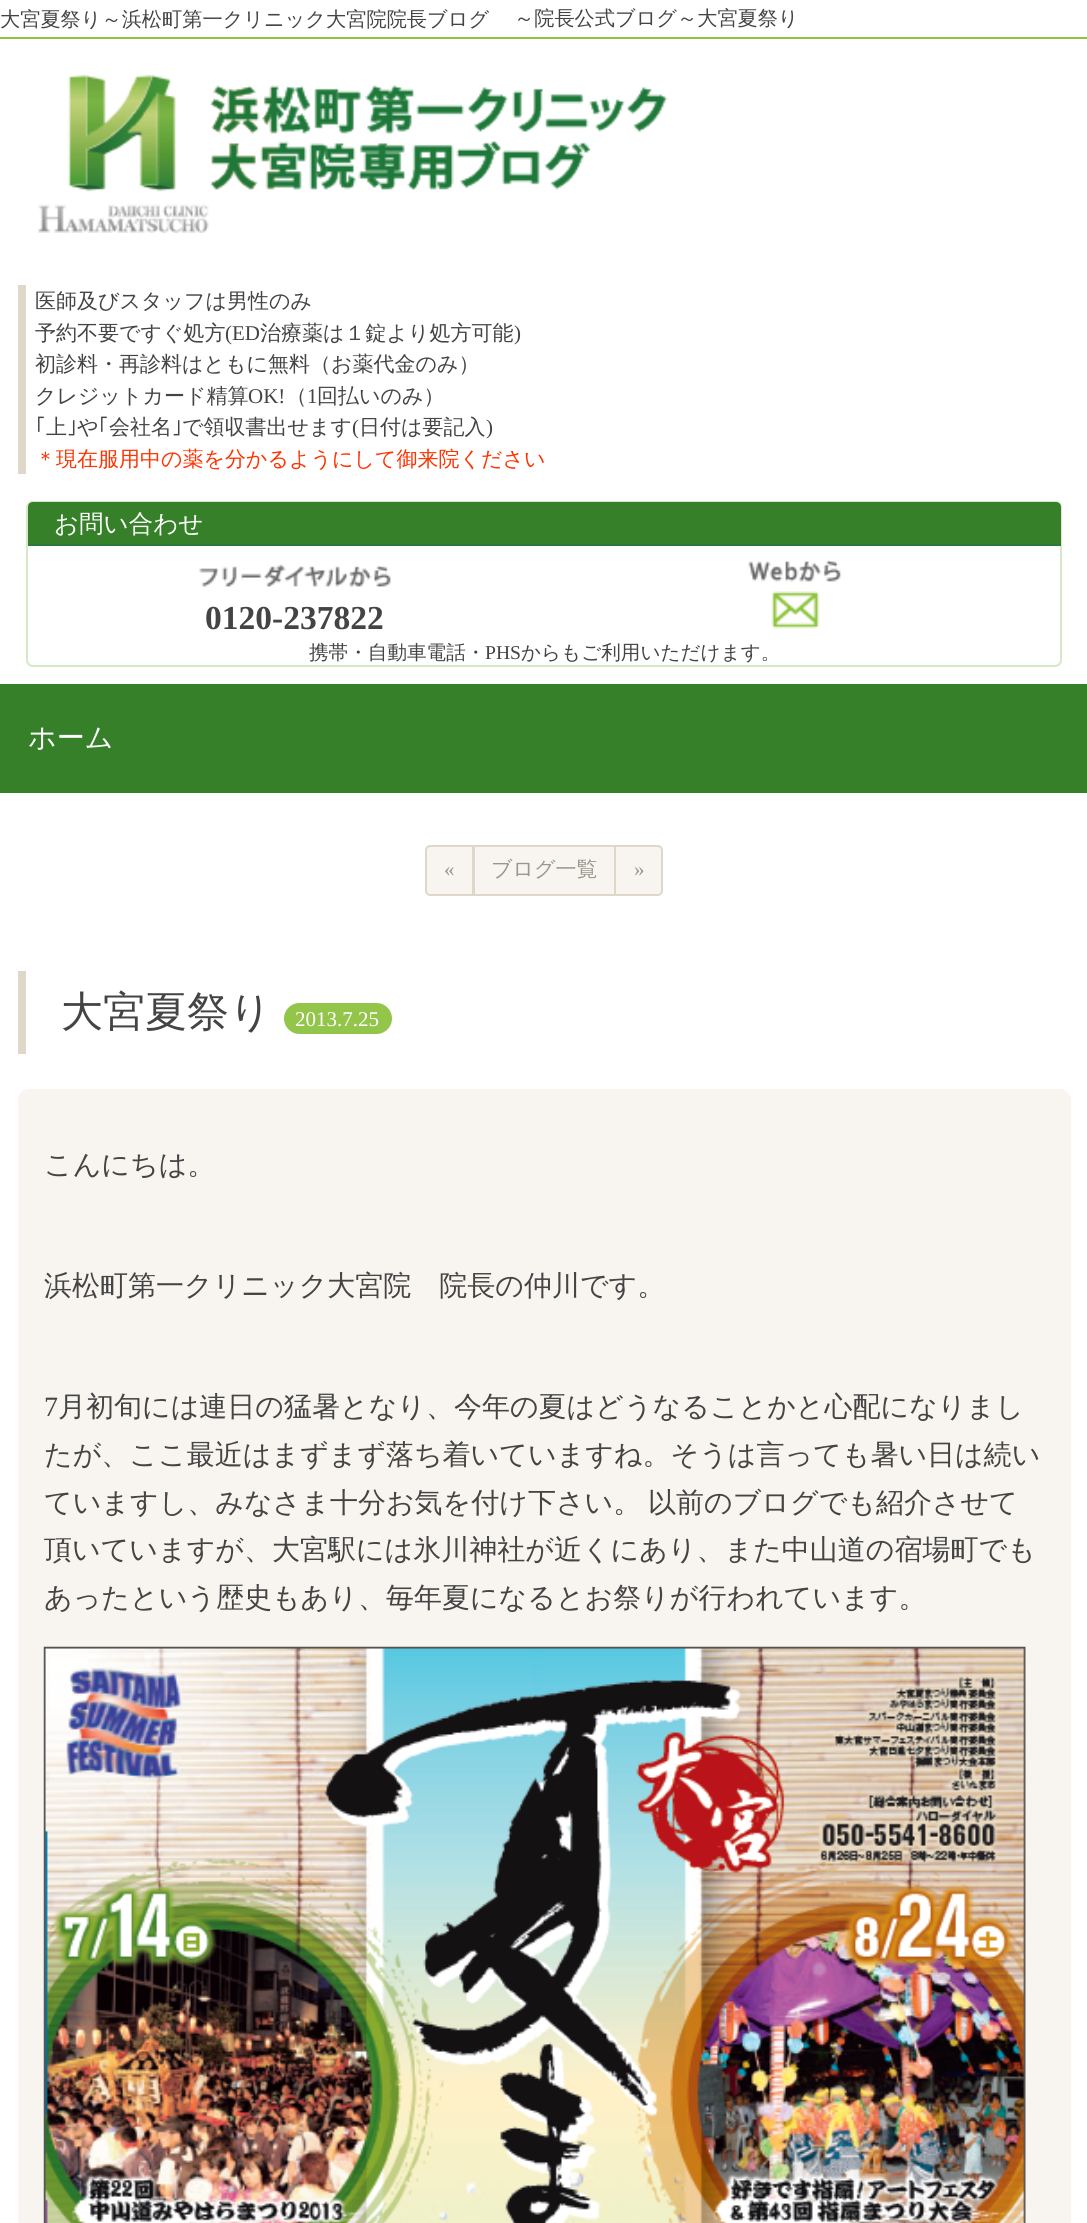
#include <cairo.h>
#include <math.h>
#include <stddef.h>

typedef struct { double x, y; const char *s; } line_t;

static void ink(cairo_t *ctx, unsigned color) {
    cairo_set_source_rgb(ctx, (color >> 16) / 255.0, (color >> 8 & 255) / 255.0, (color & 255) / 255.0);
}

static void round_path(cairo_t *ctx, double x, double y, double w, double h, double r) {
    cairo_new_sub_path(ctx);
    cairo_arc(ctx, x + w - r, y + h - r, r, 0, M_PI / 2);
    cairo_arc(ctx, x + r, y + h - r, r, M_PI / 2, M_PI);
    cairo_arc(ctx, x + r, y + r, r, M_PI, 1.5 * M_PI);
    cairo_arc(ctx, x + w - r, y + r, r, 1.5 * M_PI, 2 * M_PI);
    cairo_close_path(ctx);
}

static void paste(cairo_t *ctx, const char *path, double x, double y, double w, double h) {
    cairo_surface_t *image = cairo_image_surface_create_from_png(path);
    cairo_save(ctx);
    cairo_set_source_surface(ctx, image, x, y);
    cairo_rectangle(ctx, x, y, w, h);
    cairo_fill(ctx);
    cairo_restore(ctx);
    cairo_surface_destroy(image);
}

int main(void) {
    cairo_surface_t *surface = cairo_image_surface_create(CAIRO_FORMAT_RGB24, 1087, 2223);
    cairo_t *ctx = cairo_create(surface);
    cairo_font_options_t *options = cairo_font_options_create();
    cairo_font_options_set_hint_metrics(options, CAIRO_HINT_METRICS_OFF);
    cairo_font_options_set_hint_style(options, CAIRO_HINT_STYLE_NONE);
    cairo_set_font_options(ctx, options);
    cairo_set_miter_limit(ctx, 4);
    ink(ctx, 0xFFFFFF);
    cairo_paint(ctx);
    ink(ctx, 0x8EC43E);
    cairo_rectangle(ctx, 0, 37, 1087, 2);
    cairo_fill(ctx);
    cairo_select_font_face(ctx, "WenQuanYi Zen Hei Medium", CAIRO_FONT_SLANT_NORMAL, CAIRO_FONT_WEIGHT_NORMAL);
    cairo_set_font_size(ctx, 20.2);
    ink(ctx, 0x444444);
    cairo_move_to(ctx, 0, 26);
    cairo_show_text(ctx, "大宮夏祭り～浜松町第一クリニック大宮院院長ブログ");
    cairo_move_to(ctx, 514, 25);
    cairo_show_text(ctx, "～院長公式ブログ～大宮夏祭り");
    paste(ctx, "media/1.png", 38, 74, 630, 159);
    ink(ctx, 0xDFD7CA);
    cairo_rectangle(ctx, 18, 285, 8, 189);
    cairo_fill(ctx);
    cairo_set_font_size(ctx, 21);
    ink(ctx, 0x444444);
    cairo_move_to(ctx, 35, 308);
    cairo_show_text(ctx, "医師及びスタッフは男性のみ");
    cairo_move_to(ctx, 35, 340);
    cairo_show_text(ctx, "予約不要ですぐ処方");
    cairo_select_font_face(ctx, "Liberation Serif", CAIRO_FONT_SLANT_NORMAL, CAIRO_FONT_WEIGHT_NORMAL);
    cairo_move_to(ctx, 225, 340);
    cairo_show_text(ctx, "(ED");
    cairo_select_font_face(ctx, "WenQuanYi Zen Hei Medium", CAIRO_FONT_SLANT_NORMAL, CAIRO_FONT_WEIGHT_NORMAL);
    cairo_move_to(ctx, 260, 340);
    cairo_show_text(ctx, "治療薬は１錠より処方可能");
    cairo_select_font_face(ctx, "Liberation Serif", CAIRO_FONT_SLANT_NORMAL, CAIRO_FONT_WEIGHT_NORMAL);
    cairo_move_to(ctx, 514, 340);
    cairo_show_text(ctx, ")");
    cairo_select_font_face(ctx, "WenQuanYi Zen Hei Medium", CAIRO_FONT_SLANT_NORMAL, CAIRO_FONT_WEIGHT_NORMAL);
    cairo_move_to(ctx, 35, 371);
    cairo_show_text(ctx, "初診料・再診料はともに無料（お薬代金のみ）");
    cairo_move_to(ctx, 35, 403);
    cairo_show_text(ctx, "クレジットカード精算");
    cairo_select_font_face(ctx, "Liberation Serif", CAIRO_FONT_SLANT_NORMAL, CAIRO_FONT_WEIGHT_NORMAL);
    cairo_move_to(ctx, 248, 403);
    cairo_show_text(ctx, "OK!");
    cairo_select_font_face(ctx, "WenQuanYi Zen Hei Medium", CAIRO_FONT_SLANT_NORMAL, CAIRO_FONT_WEIGHT_NORMAL);
    cairo_move_to(ctx, 286, 403);
    cairo_show_text(ctx, "（");
    cairo_select_font_face(ctx, "Liberation Serif", CAIRO_FONT_SLANT_NORMAL, CAIRO_FONT_WEIGHT_NORMAL);
    cairo_move_to(ctx, 307, 403);
    cairo_show_text(ctx, "1");
    cairo_select_font_face(ctx, "WenQuanYi Zen Hei Medium", CAIRO_FONT_SLANT_NORMAL, CAIRO_FONT_WEIGHT_NORMAL);
    cairo_move_to(ctx, 317, 403);
    cairo_show_text(ctx, "回払いのみ）");
    cairo_select_font_face(ctx, "IPAPGothic", CAIRO_FONT_SLANT_NORMAL, CAIRO_FONT_WEIGHT_NORMAL);
    cairo_move_to(ctx, 35, 434);
    cairo_show_text(ctx, "｢");
    cairo_select_font_face(ctx, "WenQuanYi Zen Hei Medium", CAIRO_FONT_SLANT_NORMAL, CAIRO_FONT_WEIGHT_NORMAL);
    cairo_move_to(ctx, 46, 434);
    cairo_show_text(ctx, "上");
    cairo_select_font_face(ctx, "IPAPGothic", CAIRO_FONT_SLANT_NORMAL, CAIRO_FONT_WEIGHT_NORMAL);
    cairo_move_to(ctx, 67, 434);
    cairo_show_text(ctx, "｣");
    cairo_select_font_face(ctx, "WenQuanYi Zen Hei Medium", CAIRO_FONT_SLANT_NORMAL, CAIRO_FONT_WEIGHT_NORMAL);
    cairo_move_to(ctx, 77, 434);
    cairo_show_text(ctx, "や");
    cairo_select_font_face(ctx, "IPAPGothic", CAIRO_FONT_SLANT_NORMAL, CAIRO_FONT_WEIGHT_NORMAL);
    cairo_move_to(ctx, 98, 434);
    cairo_show_text(ctx, "｢");
    cairo_select_font_face(ctx, "WenQuanYi Zen Hei Medium", CAIRO_FONT_SLANT_NORMAL, CAIRO_FONT_WEIGHT_NORMAL);
    cairo_move_to(ctx, 109, 434);
    cairo_show_text(ctx, "会社名");
    cairo_select_font_face(ctx, "IPAPGothic", CAIRO_FONT_SLANT_NORMAL, CAIRO_FONT_WEIGHT_NORMAL);
    cairo_move_to(ctx, 172, 434);
    cairo_show_text(ctx, "｣");
    cairo_select_font_face(ctx, "WenQuanYi Zen Hei Medium", CAIRO_FONT_SLANT_NORMAL, CAIRO_FONT_WEIGHT_NORMAL);
    cairo_move_to(ctx, 182, 434);
    cairo_show_text(ctx, "で領収書出せます");
    cairo_select_font_face(ctx, "Liberation Serif", CAIRO_FONT_SLANT_NORMAL, CAIRO_FONT_WEIGHT_NORMAL);
    cairo_move_to(ctx, 352, 434);
    cairo_show_text(ctx, "(");
    cairo_select_font_face(ctx, "WenQuanYi Zen Hei Medium", CAIRO_FONT_SLANT_NORMAL, CAIRO_FONT_WEIGHT_NORMAL);
    cairo_move_to(ctx, 359, 434);
    cairo_show_text(ctx, "日付は要記入");
    cairo_select_font_face(ctx, "Liberation Serif", CAIRO_FONT_SLANT_NORMAL, CAIRO_FONT_WEIGHT_NORMAL);
    cairo_move_to(ctx, 486, 434);
    cairo_show_text(ctx, ")");
    cairo_select_font_face(ctx, "WenQuanYi Zen Hei Medium", CAIRO_FONT_SLANT_NORMAL, CAIRO_FONT_WEIGHT_NORMAL);
    ink(ctx, 0xFF3300);
    cairo_move_to(ctx, 35, 466);
    cairo_show_text(ctx, "＊現在服用中の薬を分かるようにして御来院ください");
    round_path(ctx, 27, 502, 1034, 164, 6);
    ink(ctx, 0xD6E9C6);
    cairo_stroke(ctx);
    ink(ctx, 0x358028);
    cairo_new_path(ctx);
    cairo_move_to(ctx, 33, 502);
    cairo_line_to(ctx, 1056, 502);
    cairo_curve_to(ctx, 1059, 502, 1061, 504, 1061, 507);
    cairo_line_to(ctx, 1061, 546);
    cairo_line_to(ctx, 28, 546);
    cairo_line_to(ctx, 28, 507);
    cairo_curve_to(ctx, 28, 504, 30, 502, 33, 502);
    cairo_close_path(ctx);
    cairo_fill(ctx);
    ink(ctx, 0x297A3C);
    cairo_rectangle(ctx, 28, 544, 1033, 2);
    cairo_fill(ctx);
    cairo_set_font_size(ctx, 24.5);
    ink(ctx, 0xFFFFFF);
    cairo_move_to(ctx, 54, 532);
    cairo_show_text(ctx, "お問い合わせ");
    paste(ctx, "media/2.png", 199, 564, 192, 23);
    paste(ctx, "media/3.png", 748, 559, 93, 70);
    cairo_select_font_face(ctx, "Liberation Serif", CAIRO_FONT_SLANT_NORMAL, CAIRO_FONT_WEIGHT_BOLD);
    cairo_set_font_size(ctx, 33.5);
    ink(ctx, 0x444444);
    cairo_move_to(ctx, 205, 629);
    cairo_show_text(ctx, "0120-237822");
    cairo_select_font_face(ctx, "WenQuanYi Zen Hei Medium", CAIRO_FONT_SLANT_NORMAL, CAIRO_FONT_WEIGHT_NORMAL);
    cairo_set_font_size(ctx, 19.6);
    cairo_move_to(ctx, 309, 659);
    cairo_show_text(ctx, "携帯・自動車電話・");
    cairo_select_font_face(ctx, "Liberation Serif", CAIRO_FONT_SLANT_NORMAL, CAIRO_FONT_WEIGHT_NORMAL);
    cairo_move_to(ctx, 485, 659);
    cairo_show_text(ctx, "PHS");
    cairo_select_font_face(ctx, "WenQuanYi Zen Hei Medium", CAIRO_FONT_SLANT_NORMAL, CAIRO_FONT_WEIGHT_NORMAL);
    cairo_move_to(ctx, 521, 659);
    cairo_show_text(ctx, "からもご利用いただけます。");
    ink(ctx, 0x358028);
    cairo_rectangle(ctx, 0, 684, 1087, 109);
    cairo_fill(ctx);
    cairo_set_font_size(ctx, 28);
    ink(ctx, 0xFFFFFF);
    cairo_move_to(ctx, 28, 747);
    cairo_show_text(ctx, "ホーム");
    ink(ctx, 0xF8F5F0);
    cairo_new_path(ctx);
    cairo_move_to(ctx, 430, 846);
    cairo_line_to(ctx, 473, 846);
    cairo_line_to(ctx, 473, 895);
    cairo_line_to(ctx, 430, 895);
    cairo_curve_to(ctx, 428, 895, 426, 893, 426, 891);
    cairo_line_to(ctx, 426, 850);
    cairo_curve_to(ctx, 426, 848, 428, 846, 430, 846);
    cairo_close_path(ctx);
    cairo_fill_preserve(ctx);
    ink(ctx, 0xDFD7CA);
    cairo_stroke(ctx);
    cairo_select_font_face(ctx, "Liberation Serif", CAIRO_FONT_SLANT_NORMAL, CAIRO_FONT_WEIGHT_NORMAL);
    cairo_set_font_size(ctx, 21);
    ink(ctx, 0x98978B);
    cairo_move_to(ctx, 444, 876);
    cairo_show_text(ctx, "«");
    ink(ctx, 0xF8F5F0);
    cairo_rectangle(ctx, 474, 846, 141, 49);
    cairo_fill_preserve(ctx);
    ink(ctx, 0xDFD7CA);
    cairo_stroke(ctx);
    cairo_select_font_face(ctx, "WenQuanYi Zen Hei Medium", CAIRO_FONT_SLANT_NORMAL, CAIRO_FONT_WEIGHT_NORMAL);
    ink(ctx, 0x98978B);
    cairo_move_to(ctx, 491, 876);
    cairo_show_text(ctx, "ブログ一覧");
    ink(ctx, 0xF8F5F0);
    cairo_new_path(ctx);
    cairo_move_to(ctx, 615, 846);
    cairo_line_to(ctx, 658, 846);
    cairo_curve_to(ctx, 660, 846, 662, 848, 662, 850);
    cairo_line_to(ctx, 662, 891);
    cairo_curve_to(ctx, 662, 893, 660, 895, 658, 895);
    cairo_line_to(ctx, 615, 895);
    cairo_close_path(ctx);
    cairo_fill_preserve(ctx);
    ink(ctx, 0xDFD7CA);
    cairo_stroke(ctx);
    cairo_select_font_face(ctx, "Liberation Serif", CAIRO_FONT_SLANT_NORMAL, CAIRO_FONT_WEIGHT_NORMAL);
    ink(ctx, 0x98978B);
    cairo_move_to(ctx, 634, 876);
    cairo_show_text(ctx, "»");
    ink(ctx, 0xDFD7CA);
    cairo_rectangle(ctx, 18, 971, 8, 83);
    cairo_fill(ctx);
    cairo_select_font_face(ctx, "WenQuanYi Zen Hei Medium", CAIRO_FONT_SLANT_NORMAL, CAIRO_FONT_WEIGHT_NORMAL);
    cairo_set_font_size(ctx, 42);
    ink(ctx, 0x444444);
    cairo_move_to(ctx, 61, 1026);
    cairo_show_text(ctx, "大宮夏祭り");
    ink(ctx, 0x93C54B);
    round_path(ctx, 284, 1003, 108, 31, 15.5);
    cairo_fill(ctx);
    cairo_select_font_face(ctx, "Liberation Serif", CAIRO_FONT_SLANT_NORMAL, CAIRO_FONT_WEIGHT_NORMAL);
    cairo_set_font_size(ctx, 21);
    ink(ctx, 0xFFFFFF);
    cairo_move_to(ctx, 295, 1026);
    cairo_show_text(ctx, "2013.7.25");
    ink(ctx, 0xF8F5F0);
    round_path(ctx, 18, 1089, 1053, 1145, 11);
    cairo_fill(ctx);
    cairo_select_font_face(ctx, "WenQuanYi Zen Hei Medium", CAIRO_FONT_SLANT_NORMAL, CAIRO_FONT_WEIGHT_NORMAL);
    cairo_set_font_size(ctx, 28);
    ink(ctx, 0x444444);
    cairo_move_to(ctx, 44, 1174);
    cairo_show_text(ctx, "こんにちは。");
    cairo_move_to(ctx, 44, 1295);
    cairo_show_text(ctx, "浜松町第一クリニック大宮院　院長の仲川です。");
    cairo_select_font_face(ctx, "Liberation Serif", CAIRO_FONT_SLANT_NORMAL, CAIRO_FONT_WEIGHT_NORMAL);
    cairo_move_to(ctx, 44, 1416);
    cairo_show_text(ctx, "7");
    cairo_select_font_face(ctx, "WenQuanYi Zen Hei Medium", CAIRO_FONT_SLANT_NORMAL, CAIRO_FONT_WEIGHT_NORMAL);
    {
        static const line_t items[] = {
            {58, 1416, "月初旬には連日の猛暑となり、今年の夏はどうなることかと心配になりまし"},
            {44, 1464, "たが、ここ最近はまずまず落ち着いていますね。そうは言っても暑い日は続い"},
            {44, 1512, "ていますし、みなさま十分お気を付け下さい。"},
            {648, 1512, "以前のブログでも紹介させて"},
            {44, 1559, "頂いていますが、大宮駅には氷川神社が近くにあり、また中山道の宿場町でも"},
            {44, 1607, "あったという歴史もあり、毎年夏になるとお祭りが行われています。"},
        };
        for (size_t i = 0; i < sizeof items / sizeof *items; i++) {
            cairo_move_to(ctx, items[i].x, items[i].y);
            cairo_show_text(ctx, items[i].s);
        }
    }
    paste(ctx, "media/4.png", 43, 1646, 983, 577);
    cairo_surface_write_to_png(surface, "image.png");
    cairo_font_options_destroy(options);
    cairo_destroy(ctx);
    cairo_surface_destroy(surface);
    return 0;
}
